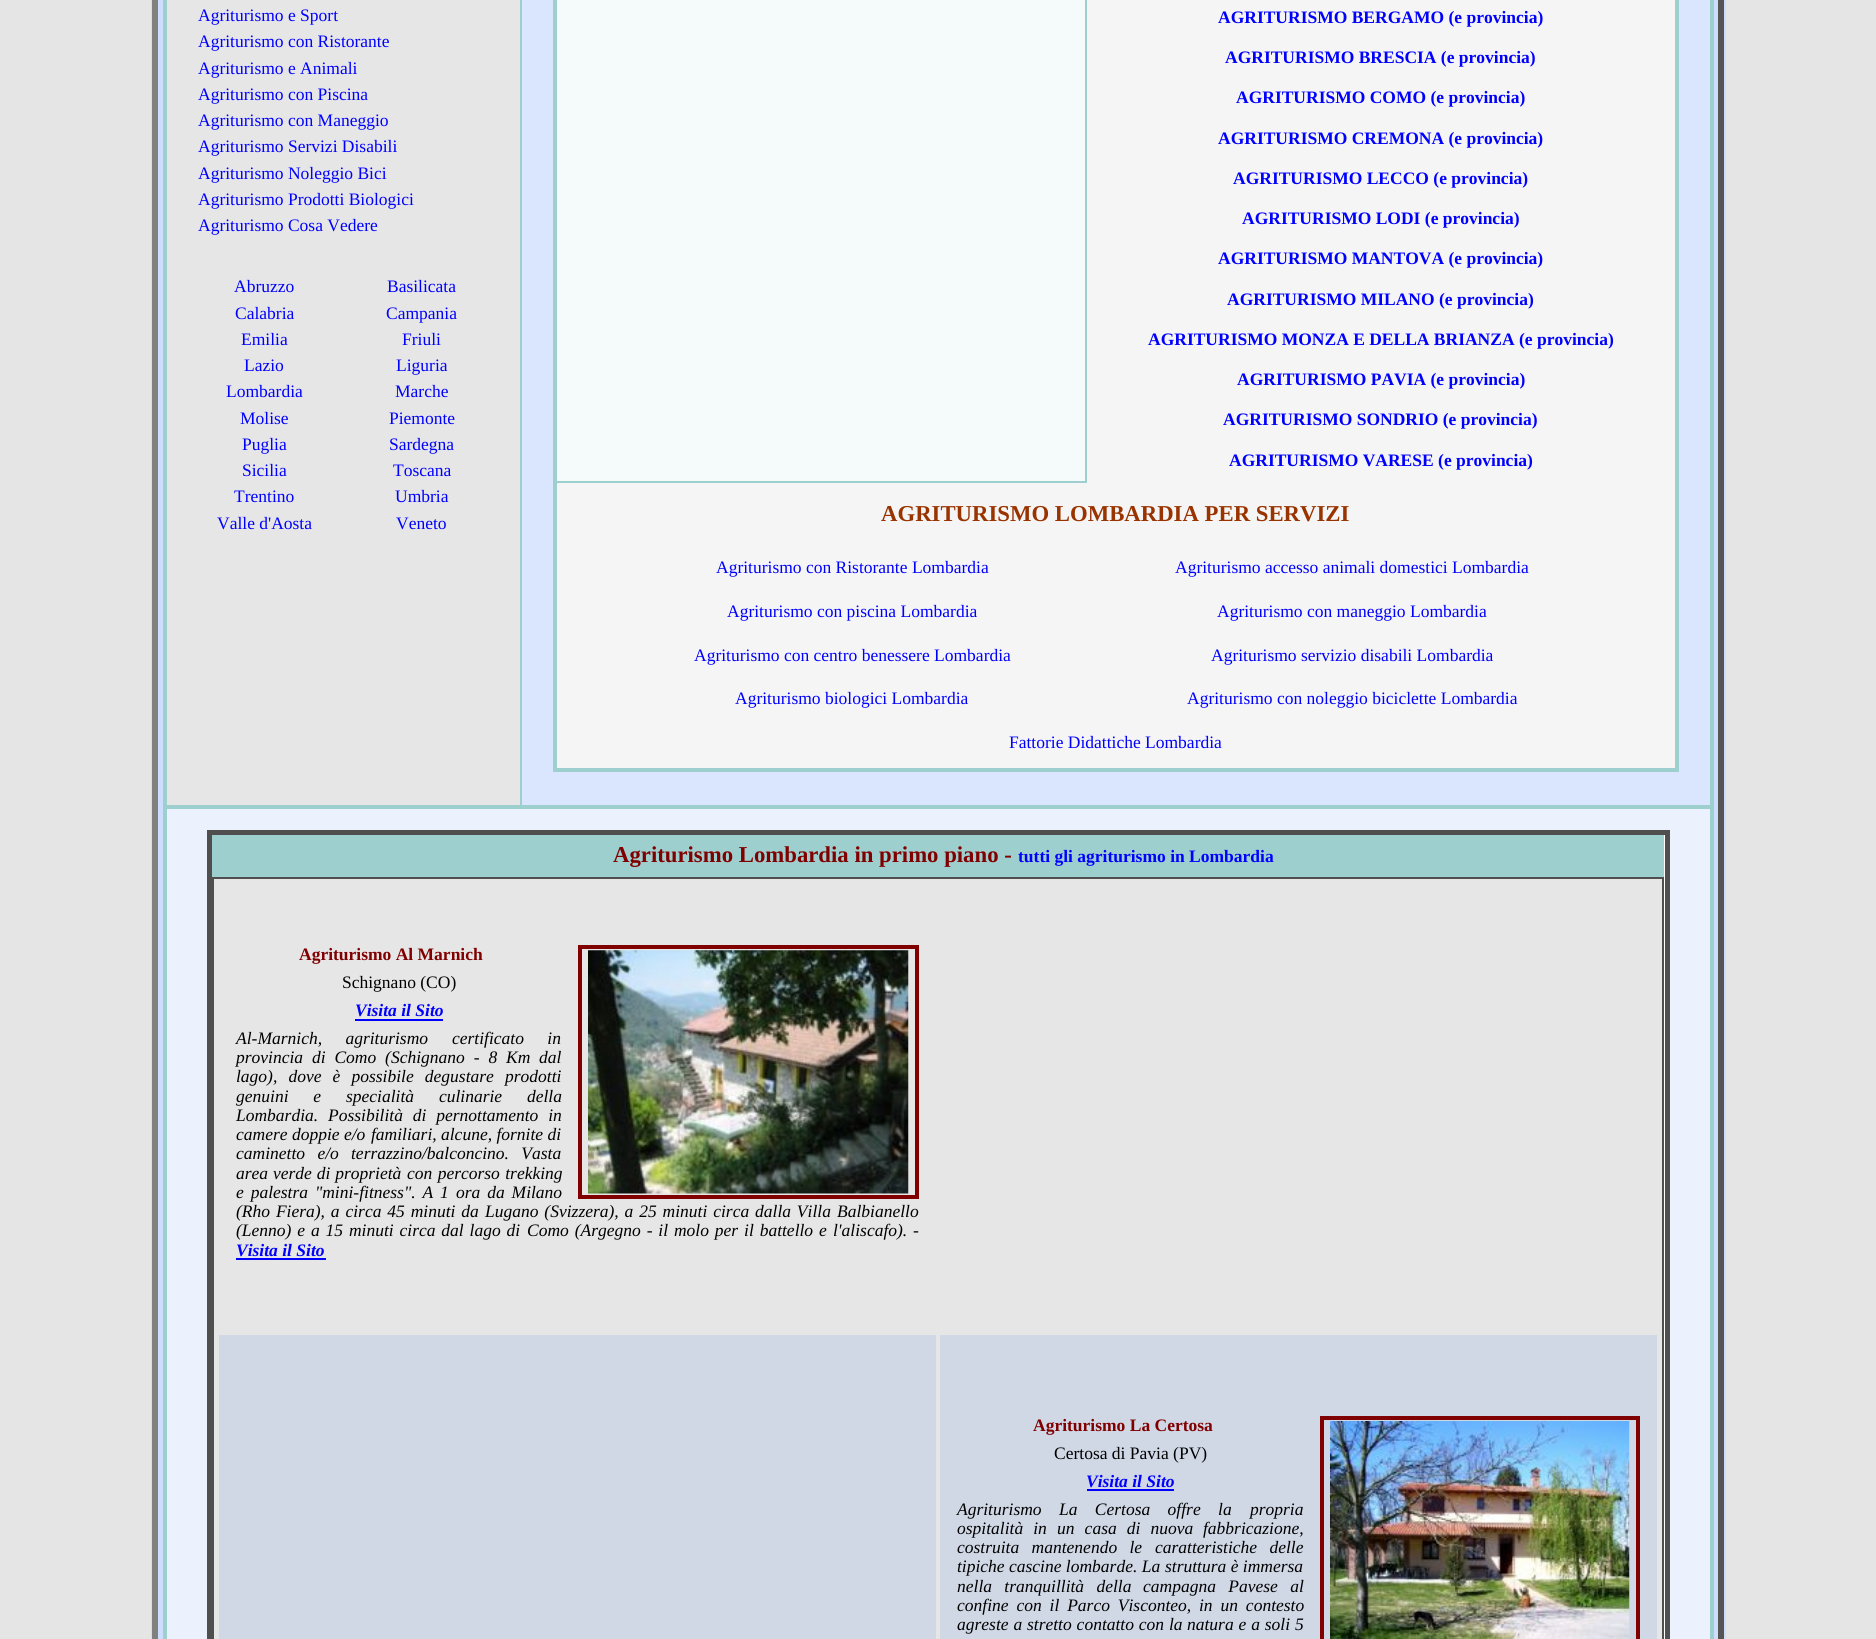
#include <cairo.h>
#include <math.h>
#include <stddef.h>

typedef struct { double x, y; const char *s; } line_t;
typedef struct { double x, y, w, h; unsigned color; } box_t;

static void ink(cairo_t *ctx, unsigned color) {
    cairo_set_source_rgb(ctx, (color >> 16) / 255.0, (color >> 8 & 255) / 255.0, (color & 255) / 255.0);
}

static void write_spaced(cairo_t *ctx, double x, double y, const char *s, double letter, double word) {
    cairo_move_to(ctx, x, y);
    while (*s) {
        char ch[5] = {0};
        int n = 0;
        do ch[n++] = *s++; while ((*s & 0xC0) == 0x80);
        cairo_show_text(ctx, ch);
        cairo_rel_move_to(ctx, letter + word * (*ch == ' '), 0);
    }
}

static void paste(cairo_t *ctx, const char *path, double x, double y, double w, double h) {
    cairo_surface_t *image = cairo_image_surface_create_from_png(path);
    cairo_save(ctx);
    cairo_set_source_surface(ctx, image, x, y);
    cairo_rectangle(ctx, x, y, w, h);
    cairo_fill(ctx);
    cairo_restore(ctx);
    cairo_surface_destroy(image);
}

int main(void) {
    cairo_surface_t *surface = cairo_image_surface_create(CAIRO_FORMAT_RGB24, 1876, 1639);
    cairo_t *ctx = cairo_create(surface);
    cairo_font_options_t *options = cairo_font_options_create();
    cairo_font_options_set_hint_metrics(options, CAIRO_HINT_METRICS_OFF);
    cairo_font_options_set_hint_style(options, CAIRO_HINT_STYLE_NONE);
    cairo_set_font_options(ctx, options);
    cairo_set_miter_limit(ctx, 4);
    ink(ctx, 0xE5E5E5);
    cairo_paint(ctx);
    ink(ctx, 0xCDDDFE);
    cairo_rectangle(ctx, 151, 0, 1575, 1639);
    cairo_fill(ctx);
    ink(ctx, 0x555555);
    cairo_new_path(ctx);
    cairo_move_to(ctx, 1724, -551);
    cairo_line_to(ctx, 1724, 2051);
    cairo_line_to(ctx, 1718, 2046);
    cairo_line_to(ctx, 1718, -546);
    cairo_close_path(ctx);
    cairo_fill(ctx);
    ink(ctx, 0x808080);
    cairo_new_path(ctx);
    cairo_move_to(ctx, 152, 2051);
    cairo_line_to(ctx, 152, -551);
    cairo_line_to(ctx, 158, -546);
    cairo_line_to(ctx, 158, 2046);
    cairo_close_path(ctx);
    cairo_fill(ctx);
    {
        static const box_t items[] = {
            {1710, 0, 4, 1639, 0x9ECFCF},
            {520, 0, 2, 807, 0x9ECFCF},
            {163, 805, 1550, 4, 0x9ECFCF},
            {163, 0, 4, 1639, 0x9ECFCF},
            {167, 0, 353, 805, 0xE6E6E6},
        };
        for (size_t i = 0; i < sizeof items / sizeof *items; i++) {
            ink(ctx, items[i].color);
            cairo_rectangle(ctx, items[i].x, items[i].y, items[i].w, items[i].h);
            cairo_fill(ctx);
        }
    }
    cairo_select_font_face(ctx, "Liberation Serif", CAIRO_FONT_SLANT_NORMAL, CAIRO_FONT_WEIGHT_NORMAL);
    cairo_set_font_size(ctx, 17.5);
    ink(ctx, 0x0000FF);
    {
        static const line_t items[] = {
            {198, 21, "Agriturismo e Sport"},
            {198, 47, "Agriturismo con Ristorante"},
            {198, 74, "Agriturismo e Animali"},
            {198, 100, "Agriturismo con Piscina"},
            {198, 126, "Agriturismo con Maneggio"},
            {198, 152, "Agriturismo Servizi Disabili"},
            {198, 179, "Agriturismo Noleggio Bici"},
            {198, 205, "Agriturismo Prodotti Biologici"},
            {198, 231, "Agriturismo Cosa Vedere"},
            {234, 292, "Abruzzo"},
            {387, 292, "Basilicata"},
            {235, 319, "Calabria"},
            {386, 319, "Campania"},
            {241, 345, "Emilia"},
            {402, 345, "Friuli"},
            {244, 371, "Lazio"},
            {396, 371, "Liguria"},
            {226, 397, "Lombardia"},
            {395, 397, "Marche"},
            {240, 424, "Molise"},
            {389, 424, "Piemonte"},
            {242, 450, "Puglia"},
            {389, 450, "Sardegna"},
            {242, 476, "Sicilia"},
            {393, 476, "Toscana"},
            {234, 502, "Trentino"},
            {395, 502, "Umbria"},
            {217, 529, "Valle d'Aosta"},
            {396, 529, "Veneto"},
        };
        for (size_t i = 0; i < sizeof items / sizeof *items; i++) {
            cairo_move_to(ctx, items[i].x, items[i].y);
            cairo_show_text(ctx, items[i].s);
        }
    }
    {
        static const box_t items[] = {
            {522, 0, 1188, 805, 0xDAE6FE},
            {1675, 0, 4, 772, 0x9ECFCF},
            {553, 768, 1125, 4, 0x9ECFCF},
            {557, 481, 1118, 287, 0xF5F5F5},
            {1085, 0, 2, 483, 0x9ECFCF},
            {553, 481, 534, 2, 0x9ECFCF},
            {553, 0, 4, 772, 0x9ECFCF},
            {557, 0, 528, 481, 0xF5FAFA},
            {1087, 0, 588, 481, 0xF5F5F5},
        };
        for (size_t i = 0; i < sizeof items / sizeof *items; i++) {
            ink(ctx, items[i].color);
            cairo_rectangle(ctx, items[i].x, items[i].y, items[i].w, items[i].h);
            cairo_fill(ctx);
        }
    }
    cairo_select_font_face(ctx, "Liberation Serif", CAIRO_FONT_SLANT_NORMAL, CAIRO_FONT_WEIGHT_BOLD);
    ink(ctx, 0x0000FF);
    {
        static const line_t items[] = {
            {1218, 23, "AGRITURISMO BERGAMO (e provincia)"},
            {1225, 63, "AGRITURISMO BRESCIA (e provincia)"},
            {1236, 103, "AGRITURISMO COMO (e provincia)"},
            {1218, 144, "AGRITURISMO CREMONA (e provincia)"},
            {1233, 184, "AGRITURISMO LECCO (e provincia)"},
            {1242, 224, "AGRITURISMO LODI (e provincia)"},
            {1218, 264, "AGRITURISMO MANTOVA (e provincia)"},
            {1227, 305, "AGRITURISMO MILANO (e provincia)"},
            {1148, 345, "AGRITURISMO MONZA E DELLA BRIANZA (e provincia)"},
            {1237, 385, "AGRITURISMO PAVIA (e provincia)"},
            {1223, 425, "AGRITURISMO SONDRIO (e provincia)"},
            {1229, 466, "AGRITURISMO VARESE (e provincia)"},
        };
        for (size_t i = 0; i < sizeof items / sizeof *items; i++) {
            cairo_move_to(ctx, items[i].x, items[i].y);
            cairo_show_text(ctx, items[i].s);
        }
    }
    cairo_set_font_size(ctx, 22.75);
    ink(ctx, 0x993300);
    cairo_move_to(ctx, 881, 521);
    cairo_show_text(ctx, "AGRITURISMO LOMBARDIA PER SERVIZI");
    cairo_select_font_face(ctx, "Liberation Serif", CAIRO_FONT_SLANT_NORMAL, CAIRO_FONT_WEIGHT_NORMAL);
    cairo_set_font_size(ctx, 17.5);
    ink(ctx, 0x0000FF);
    {
        static const line_t items[] = {
            {716, 573, "Agriturismo con Ristorante Lombardia"},
            {1175, 573, "Agriturismo accesso animali domestici Lombardia"},
            {727, 617, "Agriturismo con piscina Lombardia"},
            {1217, 617, "Agriturismo con maneggio Lombardia"},
            {694, 661, "Agriturismo con centro benessere Lombardia"},
            {1211, 661, "Agriturismo servizio disabili Lombardia"},
            {735, 704, "Agriturismo biologici Lombardia"},
            {1187, 704, "Agriturismo con noleggio biciclette Lombardia"},
            {1009, 748, "Fattorie Didattiche Lombardia"},
        };
        for (size_t i = 0; i < sizeof items / sizeof *items; i++) {
            cairo_move_to(ctx, items[i].x, items[i].y);
            cairo_show_text(ctx, items[i].s);
        }
    }
    ink(ctx, 0xECF2FD);
    cairo_rectangle(ctx, 167, 809, 1543, 830);
    cairo_fill(ctx);
    ink(ctx, 0xFFFFFF);
    cairo_rectangle(ctx, 1664, 835, 1, 804);
    cairo_fill(ctx);
    cairo_rectangle(ctx, 209.5, 832.5, 1458, 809);
    ink(ctx, 0x4F4F4F);
    cairo_set_line_width(ctx, 5);
    cairo_stroke(ctx);
    ink(ctx, 0x9ECFCF);
    cairo_rectangle(ctx, 212, 835, 1452, 42);
    cairo_fill(ctx);
    cairo_select_font_face(ctx, "Liberation Serif", CAIRO_FONT_SLANT_NORMAL, CAIRO_FONT_WEIGHT_BOLD);
    cairo_set_font_size(ctx, 22.75);
    ink(ctx, 0x800000);
    cairo_move_to(ctx, 613, 862);
    cairo_show_text(ctx, "Agriturismo Lombardia in primo piano -");
    cairo_set_font_size(ctx, 17.5);
    ink(ctx, 0x0000FF);
    cairo_move_to(ctx, 1018, 862);
    cairo_show_text(ctx, "tutti gli agriturismo in Lombardia");
    ink(ctx, 0xE6E6E6);
    cairo_rectangle(ctx, 213, 878, 1450, 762);
    cairo_fill_preserve(ctx);
    ink(ctx, 0x4F4F4F);
    cairo_set_line_width(ctx, 2);
    cairo_stroke(ctx);
    ink(ctx, 0x800000);
    cairo_move_to(ctx, 299, 960);
    cairo_show_text(ctx, "Agriturismo Al Marnich");
    cairo_rectangle(ctx, 580, 947, 337, 250);
    cairo_set_line_width(ctx, 4);
    cairo_stroke(ctx);
    paste(ctx, "media/1.png", 588, 950, 321, 244);
    cairo_select_font_face(ctx, "Liberation Serif", CAIRO_FONT_SLANT_NORMAL, CAIRO_FONT_WEIGHT_NORMAL);
    ink(ctx, 0x000000);
    cairo_move_to(ctx, 342, 988);
    cairo_show_text(ctx, "Schignano (CO)");
    cairo_select_font_face(ctx, "Liberation Serif", CAIRO_FONT_SLANT_ITALIC, CAIRO_FONT_WEIGHT_BOLD);
    ink(ctx, 0x0000FF);
    cairo_move_to(ctx, 355, 1016);
    cairo_show_text(ctx, "Visita il Sito");
    cairo_rectangle(ctx, 355, 1019, 88, 2);
    cairo_fill(ctx);
    cairo_select_font_face(ctx, "Liberation Serif", CAIRO_FONT_SLANT_ITALIC, CAIRO_FONT_WEIGHT_NORMAL);
    ink(ctx, 0x000000);
    write_spaced(ctx, 236, 1044, "Al-Marnich, agriturismo", 0, 19);
    write_spaced(ctx, 452, 1044, "certificato in", 0, 19);
    write_spaced(ctx, 236, 1063, "provincia di Como (Schignano - 8 Km", 0, 4.5);
    cairo_move_to(ctx, 539, 1063);
    cairo_show_text(ctx, "dal");
    write_spaced(ctx, 236, 1082, "lago), dove è possibile degustare prodotti", 0, 6.75);
    write_spaced(ctx, 236, 1102, "genuini e specialità culinarie della", 0, 20.5);
    cairo_move_to(ctx, 236, 1121);
    cairo_show_text(ctx, "Lombardia.");
    write_spaced(ctx, 328, 1121, "Possibilità di pernottamento in", 0, 5.5);
    cairo_move_to(ctx, 236, 1140);
    cairo_show_text(ctx, "camere doppie e/o");
    cairo_move_to(ctx, 371, 1140);
    cairo_show_text(ctx, "familiari, alcune, fornite di");
    write_spaced(ctx, 236, 1159, "caminetto e/o", 0, 8);
    write_spaced(ctx, 351, 1159, "terrazzino/balconcino. Vasta", 0, 8);
    write_spaced(ctx, 236, 1179, "area verde di proprietà", 0, 0.5);
    write_spaced(ctx, 407, 1179, "con percorso trekking", 0, 1);
    write_spaced(ctx, 236, 1198, "e palestra \"mini-fitness\". A 1", 0, 2.5);
    write_spaced(ctx, 456, 1198, "ora da Milano", 0, 2.5);
    write_spaced(ctx, 236, 1217, "(Rho Fiera), a circa 45 minuti da", 0, 1.5);
    write_spaced(ctx, 485, 1217, "Lugano (Svizzera), a 25 minuti circa dalla Villa", 0, 1.5);
    cairo_move_to(ctx, 837, 1217);
    cairo_show_text(ctx, "Balbianello");
    write_spaced(ctx, 236, 1236, "(Lenno) e a 15 minuti circa dal lago di", 0, 1.5);
    write_spaced(ctx, 527, 1236, "Como (Argegno - il molo per il battello e", 0, 1.5);
    cairo_move_to(ctx, 833, 1236);
    cairo_show_text(ctx, "l'aliscafo).");
    cairo_move_to(ctx, 913, 1236);
    cairo_show_text(ctx, "-");
    cairo_select_font_face(ctx, "Liberation Serif", CAIRO_FONT_SLANT_ITALIC, CAIRO_FONT_WEIGHT_BOLD);
    ink(ctx, 0x0000FF);
    cairo_move_to(ctx, 236, 1256);
    cairo_show_text(ctx, "Visita il Sito");
    {
        static const box_t items[] = {
            {236, 1258, 90, 2, 0x0000FF},
            {219, 1335, 717, 304, 0xD0D7E5},
            {940, 1335, 717, 304, 0xD0D7E5},
        };
        for (size_t i = 0; i < sizeof items / sizeof *items; i++) {
            ink(ctx, items[i].color);
            cairo_rectangle(ctx, items[i].x, items[i].y, items[i].w, items[i].h);
            cairo_fill(ctx);
        }
    }
    cairo_select_font_face(ctx, "Liberation Serif", CAIRO_FONT_SLANT_NORMAL, CAIRO_FONT_WEIGHT_BOLD);
    ink(ctx, 0x800000);
    cairo_move_to(ctx, 1033, 1431);
    cairo_show_text(ctx, "Agriturismo La Certosa");
    cairo_rectangle(ctx, 1322, 1418, 316, 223);
    cairo_stroke(ctx);
    paste(ctx, "media/2.png", 1330, 1421, 300, 218);
    cairo_select_font_face(ctx, "Liberation Serif", CAIRO_FONT_SLANT_NORMAL, CAIRO_FONT_WEIGHT_NORMAL);
    ink(ctx, 0x000000);
    cairo_move_to(ctx, 1054, 1459);
    cairo_show_text(ctx, "Certosa di Pavia (PV)");
    cairo_select_font_face(ctx, "Liberation Serif", CAIRO_FONT_SLANT_ITALIC, CAIRO_FONT_WEIGHT_BOLD);
    ink(ctx, 0x0000FF);
    cairo_move_to(ctx, 1086, 1487);
    cairo_show_text(ctx, "Visita il Sito");
    cairo_rectangle(ctx, 1087, 1489, 87, 2);
    cairo_fill(ctx);
    cairo_select_font_face(ctx, "Liberation Serif", CAIRO_FONT_SLANT_ITALIC, CAIRO_FONT_WEIGHT_NORMAL);
    ink(ctx, 0x000000);
    write_spaced(ctx, 957, 1515, "Agriturismo La Certosa offre la", 0, 13);
    cairo_move_to(ctx, 1250, 1515);
    cairo_show_text(ctx, "propria");
    write_spaced(ctx, 957, 1534, "ospitalità in un casa di nuova", 0, 5.75);
    cairo_move_to(ctx, 1203, 1534);
    cairo_show_text(ctx, "fabbricazione,");
    write_spaced(ctx, 957, 1553, "costruita mantenendo le", 0, 8);
    write_spaced(ctx, 1155, 1553, "caratteristiche delle", 0, 8);
    cairo_move_to(ctx, 957, 1572);
    cairo_show_text(ctx, "tipiche cascine lombarde. La");
    cairo_move_to(ctx, 1165, 1572);
    cairo_show_text(ctx, "struttura è immersa");
    write_spaced(ctx, 957, 1592, "nella tranquillità della", 0, 8);
    write_spaced(ctx, 1143, 1592, "campagna Pavese al", 0, 8);
    write_spaced(ctx, 957, 1611, "confine con il Parco Visconteo,", 0, 3.5);
    write_spaced(ctx, 1199, 1611, "in un contesto", 0, 3.5);
    write_spaced(ctx, 957, 1630, "agreste a stretto contatto con la", 0, 0.5);
    write_spaced(ctx, 1187, 1630, "natura e a soli 5", 0, 0.5);
    cairo_surface_write_to_png(surface, "image.png");
    cairo_font_options_destroy(options);
    cairo_destroy(ctx);
    cairo_surface_destroy(surface);
    return 0;
}
